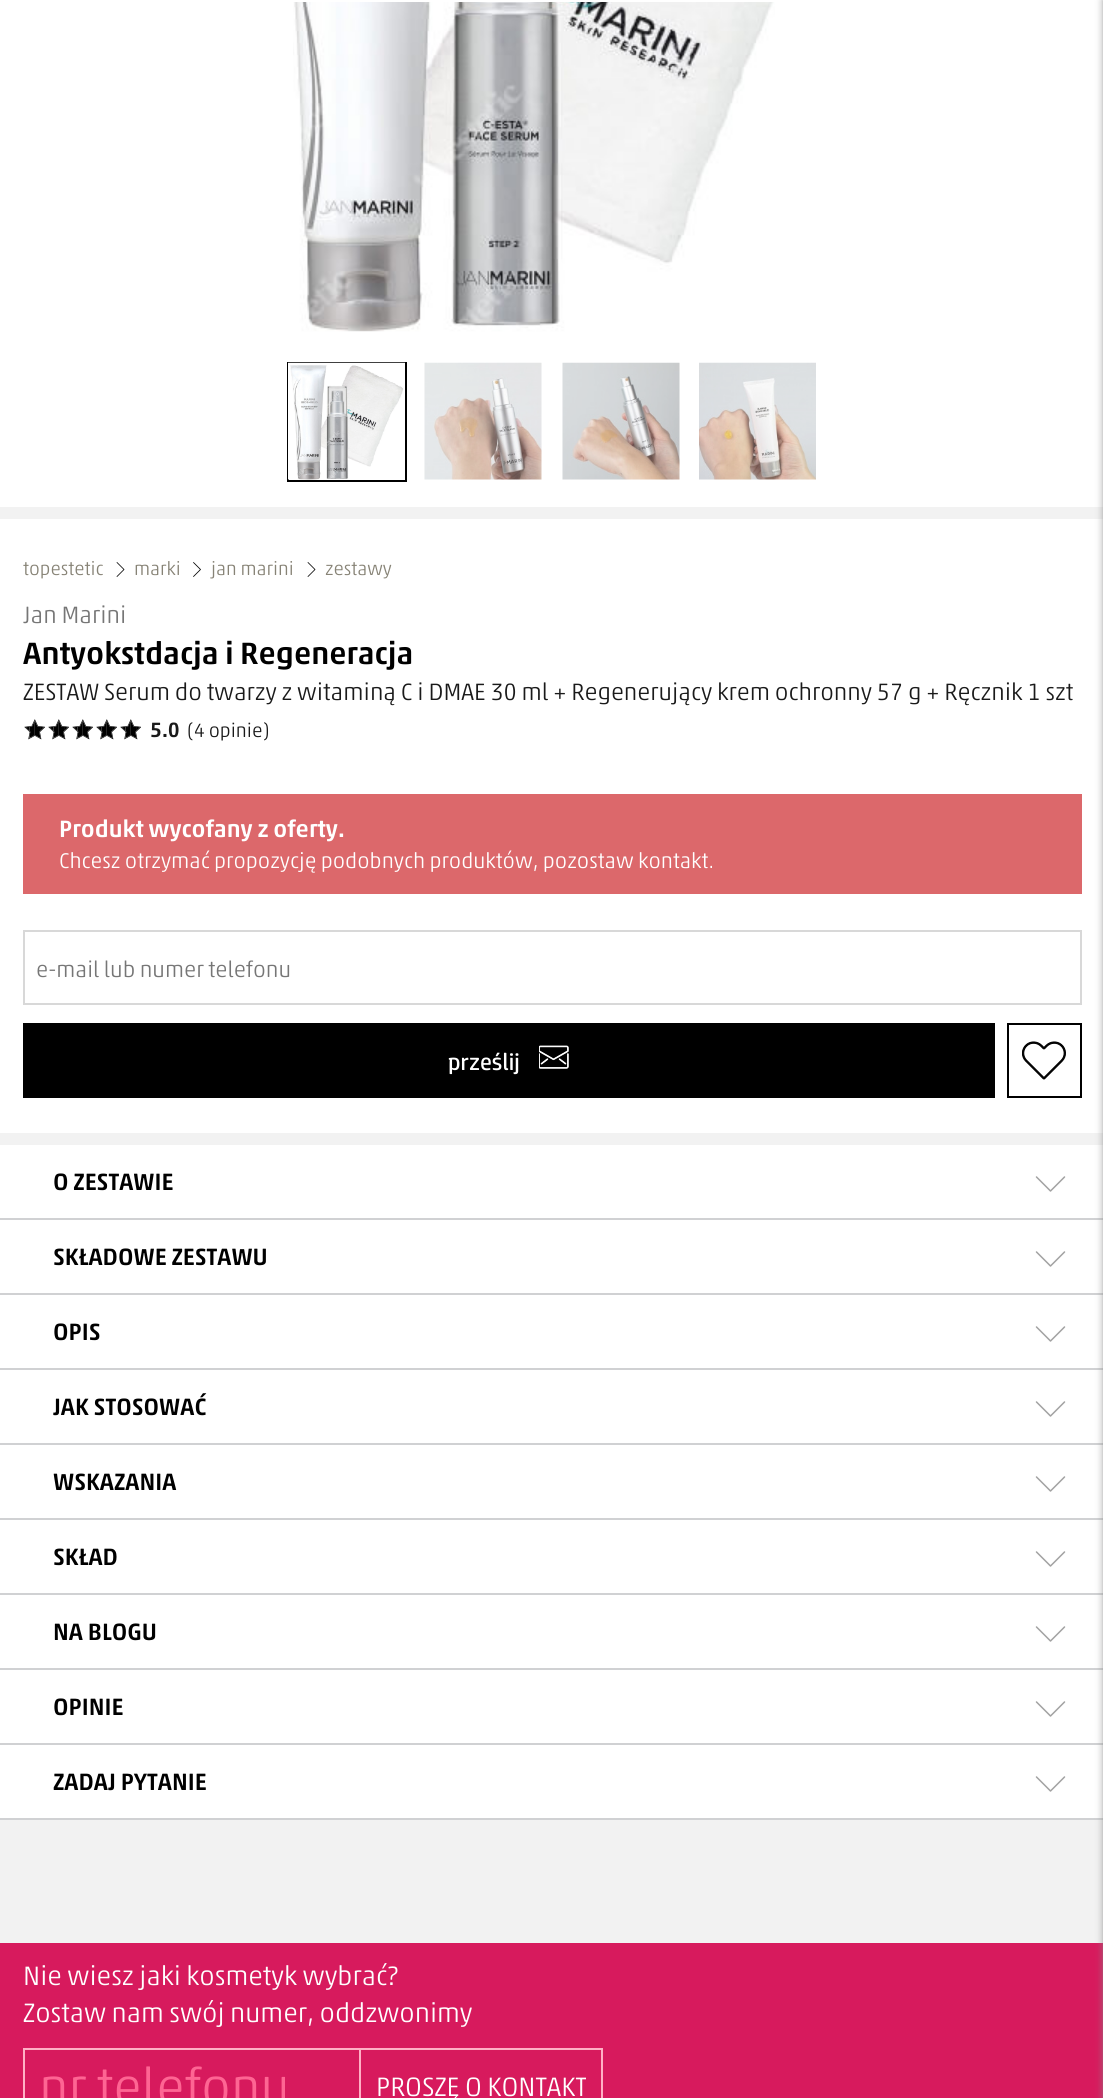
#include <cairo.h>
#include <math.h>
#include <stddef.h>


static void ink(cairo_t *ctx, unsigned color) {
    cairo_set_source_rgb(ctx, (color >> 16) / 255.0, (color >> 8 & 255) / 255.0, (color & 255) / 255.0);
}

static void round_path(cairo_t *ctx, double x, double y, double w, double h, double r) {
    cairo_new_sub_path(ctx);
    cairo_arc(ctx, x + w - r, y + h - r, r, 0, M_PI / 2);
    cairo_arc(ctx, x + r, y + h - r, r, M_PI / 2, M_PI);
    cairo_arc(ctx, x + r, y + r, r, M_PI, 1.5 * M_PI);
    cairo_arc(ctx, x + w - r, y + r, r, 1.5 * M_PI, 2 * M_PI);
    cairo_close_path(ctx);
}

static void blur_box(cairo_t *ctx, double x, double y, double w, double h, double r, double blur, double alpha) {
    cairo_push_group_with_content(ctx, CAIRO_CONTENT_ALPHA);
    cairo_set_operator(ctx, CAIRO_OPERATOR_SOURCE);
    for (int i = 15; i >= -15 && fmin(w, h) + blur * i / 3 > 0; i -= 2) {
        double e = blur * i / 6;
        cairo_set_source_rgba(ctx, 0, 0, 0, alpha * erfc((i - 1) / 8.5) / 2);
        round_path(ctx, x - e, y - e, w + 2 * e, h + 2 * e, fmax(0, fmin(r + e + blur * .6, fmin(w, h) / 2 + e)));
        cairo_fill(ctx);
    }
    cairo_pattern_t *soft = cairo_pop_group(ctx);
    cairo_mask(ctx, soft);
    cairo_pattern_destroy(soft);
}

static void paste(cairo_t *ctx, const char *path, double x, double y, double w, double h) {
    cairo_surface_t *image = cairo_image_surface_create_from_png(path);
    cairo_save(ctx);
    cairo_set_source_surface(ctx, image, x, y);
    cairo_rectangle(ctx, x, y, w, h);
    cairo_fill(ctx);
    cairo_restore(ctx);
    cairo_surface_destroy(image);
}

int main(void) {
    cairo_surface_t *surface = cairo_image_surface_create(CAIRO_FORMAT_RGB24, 1103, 2098);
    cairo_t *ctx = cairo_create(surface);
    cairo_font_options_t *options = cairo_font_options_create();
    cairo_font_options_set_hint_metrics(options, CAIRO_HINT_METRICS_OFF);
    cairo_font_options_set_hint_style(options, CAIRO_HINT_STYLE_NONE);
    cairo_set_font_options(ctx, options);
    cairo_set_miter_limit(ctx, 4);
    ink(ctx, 0xF2F2F2);
    cairo_paint(ctx);
    ink(ctx, 0xFFFFFF);
    cairo_rectangle(ctx, 0, 0, 1103, 507);
    cairo_fill(ctx);
    paste(ctx, "media/1.png", 293, 2, 482, 330);
    cairo_rectangle(ctx, 288, 363, 118, 118);
    ink(ctx, 0x000000);
    cairo_stroke(ctx);
    paste(ctx, "media/2.png", 288, 362, 117, 118);
    paste(ctx, "media/3.png", 424, 362, 118, 118);
    paste(ctx, "media/4.png", 562, 362, 118, 118);
    paste(ctx, "media/5.png", 699, 362, 117, 118);
    ink(ctx, 0xFFFFFF);
    cairo_rectangle(ctx, 0, 519, 1103, 614);
    cairo_fill(ctx);
    cairo_select_font_face(ctx, "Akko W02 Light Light", CAIRO_FONT_SLANT_NORMAL, CAIRO_FONT_WEIGHT_NORMAL);
    cairo_set_font_size(ctx, 19);
    ink(ctx, 0x878376);
    cairo_move_to(ctx, 23, 575);
    cairo_show_text(ctx, "topestetic");
    cairo_new_path(ctx);
    cairo_move_to(ctx, 117, 562.5);
    cairo_line_to(ctx, 124, 569.5);
    cairo_line_to(ctx, 117, 576.5);
    ink(ctx, 0x000000);
    cairo_set_line_width(ctx, 0.8);
    cairo_set_line_cap(ctx, CAIRO_LINE_CAP_ROUND);
    cairo_set_line_join(ctx, CAIRO_LINE_JOIN_ROUND);
    cairo_stroke(ctx);
    ink(ctx, 0x878376);
    cairo_move_to(ctx, 134, 575);
    cairo_show_text(ctx, "marki");
    cairo_new_path(ctx);
    cairo_move_to(ctx, 193.5, 562.5);
    cairo_line_to(ctx, 200.5, 569.5);
    cairo_line_to(ctx, 193.5, 576.5);
    ink(ctx, 0x000000);
    cairo_stroke(ctx);
    ink(ctx, 0x878376);
    cairo_move_to(ctx, 211, 575);
    cairo_show_text(ctx, "jan marini");
    cairo_new_path(ctx);
    cairo_move_to(ctx, 308, 562.5);
    cairo_line_to(ctx, 315, 569.5);
    cairo_line_to(ctx, 308, 576.5);
    ink(ctx, 0x000000);
    cairo_stroke(ctx);
    ink(ctx, 0x878376);
    cairo_move_to(ctx, 325, 575);
    cairo_show_text(ctx, "zestawy");
    cairo_set_font_size(ctx, 24);
    ink(ctx, 0x767676);
    cairo_move_to(ctx, 23, 623);
    cairo_show_text(ctx, "Jan Marini");
    cairo_select_font_face(ctx, "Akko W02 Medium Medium", CAIRO_FONT_SLANT_NORMAL, CAIRO_FONT_WEIGHT_NORMAL);
    cairo_set_font_size(ctx, 31.25);
    ink(ctx, 0x000000);
    cairo_move_to(ctx, 23, 664);
    cairo_show_text(ctx, "Antyokstdacja i Regeneracja");
    cairo_select_font_face(ctx, "Akko W02 Light Light", CAIRO_FONT_SLANT_NORMAL, CAIRO_FONT_WEIGHT_NORMAL);
    cairo_set_font_size(ctx, 24);
    ink(ctx, 0x1A1A1A);
    cairo_move_to(ctx, 23, 700);
    cairo_show_text(ctx, "ZESTAW Serum do twarzy z witaminą C i DMAE 30 ml + Regenerujący krem ochronny 57 g + Ręcznik 1 szt");
    paste(ctx, "media/6.png", 24, 719, 21, 21);
    paste(ctx, "media/6.png", 48, 719, 21, 21);
    paste(ctx, "media/6.png", 72, 719, 21, 21);
    paste(ctx, "media/6.png", 96, 719, 21, 21);
    paste(ctx, "media/6.png", 120, 719, 21, 21);
    cairo_select_font_face(ctx, "Akko W02 Medium Medium", CAIRO_FONT_SLANT_NORMAL, CAIRO_FONT_WEIGHT_NORMAL);
    cairo_set_font_size(ctx, 21);
    cairo_move_to(ctx, 150, 737);
    cairo_show_text(ctx, "5.0");
    cairo_select_font_face(ctx, "Akko W02 Light Light", CAIRO_FONT_SLANT_NORMAL, CAIRO_FONT_WEIGHT_NORMAL);
    cairo_set_font_size(ctx, 19.5);
    cairo_move_to(ctx, 187, 737);
    cairo_show_text(ctx, "(4 opinie)");
    ink(ctx, 0xDC686B);
    cairo_rectangle(ctx, 23, 794, 1059, 100);
    cairo_fill(ctx);
    cairo_select_font_face(ctx, "Akko W02 Medium Medium", CAIRO_FONT_SLANT_NORMAL, CAIRO_FONT_WEIGHT_NORMAL);
    cairo_set_font_size(ctx, 24);
    ink(ctx, 0xFFFFFF);
    cairo_move_to(ctx, 59, 837);
    cairo_show_text(ctx, "Produkt wycofany z oferty.");
    cairo_select_font_face(ctx, "Akko W02 Light Light", CAIRO_FONT_SLANT_NORMAL, CAIRO_FONT_WEIGHT_NORMAL);
    cairo_set_font_size(ctx, 21.6);
    cairo_move_to(ctx, 59, 868);
    cairo_show_text(ctx, "Chcesz otrzymać propozycję podobnych produktów, pozostaw kontakt.");
    cairo_rectangle(ctx, 24, 931, 1057, 73);
    ink(ctx, 0xD8D8D8);
    cairo_set_line_width(ctx, 2);
    cairo_set_line_cap(ctx, CAIRO_LINE_CAP_BUTT);
    cairo_set_line_join(ctx, CAIRO_LINE_JOIN_MITER);
    cairo_stroke(ctx);
    cairo_set_font_size(ctx, 22.5);
    ink(ctx, 0x767676);
    cairo_move_to(ctx, 36, 977);
    cairo_show_text(ctx, "e-mail lub numer telefonu");
    ink(ctx, 0x000000);
    cairo_rectangle(ctx, 23, 1023, 972, 75);
    cairo_fill(ctx);
    cairo_select_font_face(ctx, "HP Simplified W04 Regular", CAIRO_FONT_SLANT_NORMAL, CAIRO_FONT_WEIGHT_NORMAL);
    cairo_set_font_size(ctx, 24);
    ink(ctx, 0xFFFFFF);
    cairo_move_to(ctx, 448, 1070);
    cairo_show_text(ctx, "prześlij");
    paste(ctx, "media/7.png", 539, 1045, 30, 24);
    cairo_rectangle(ctx, 1008, 1024, 73, 73);
    ink(ctx, 0x000000);
    cairo_stroke(ctx);
    paste(ctx, "media/8.png", 1022, 1041, 44, 39);
    ink(ctx, 0xFFFFFF);
    cairo_rectangle(ctx, 0, 1145, 1103, 73);
    cairo_fill(ctx);
    ink(ctx, 0xD0D1D3);
    cairo_rectangle(ctx, 0, 1218, 1103, 2);
    cairo_fill(ctx);
    cairo_select_font_face(ctx, "Akko W02 Medium Medium", CAIRO_FONT_SLANT_NORMAL, CAIRO_FONT_WEIGHT_NORMAL);
    ink(ctx, 0x000000);
    cairo_move_to(ctx, 53, 1190);
    cairo_show_text(ctx, "O ZESTAWIE");
    cairo_new_path(ctx);
    cairo_move_to(ctx, 1064.5, 1177);
    cairo_line_to(ctx, 1050.5, 1191);
    cairo_line_to(ctx, 1036.5, 1177);
    ink(ctx, 0xA2A2A2);
    cairo_set_line_width(ctx, 1.5);
    cairo_set_line_cap(ctx, CAIRO_LINE_CAP_ROUND);
    cairo_set_line_join(ctx, CAIRO_LINE_JOIN_ROUND);
    cairo_stroke(ctx);
    ink(ctx, 0xFFFFFF);
    cairo_rectangle(ctx, 0, 1220, 1103, 73);
    cairo_fill(ctx);
    ink(ctx, 0xD0D1D3);
    cairo_rectangle(ctx, 0, 1293, 1103, 2);
    cairo_fill(ctx);
    ink(ctx, 0x000000);
    cairo_move_to(ctx, 53, 1265);
    cairo_show_text(ctx, "SKŁADOWE ZESTAWU");
    cairo_new_path(ctx);
    cairo_move_to(ctx, 1064.5, 1252);
    cairo_line_to(ctx, 1050.5, 1266);
    cairo_line_to(ctx, 1036.5, 1252);
    ink(ctx, 0xA2A2A2);
    cairo_stroke(ctx);
    ink(ctx, 0xFFFFFF);
    cairo_rectangle(ctx, 0, 1295, 1103, 73);
    cairo_fill(ctx);
    ink(ctx, 0xD0D1D3);
    cairo_rectangle(ctx, 0, 1368, 1103, 2);
    cairo_fill(ctx);
    ink(ctx, 0x000000);
    cairo_move_to(ctx, 53, 1340);
    cairo_show_text(ctx, "OPIS");
    cairo_new_path(ctx);
    cairo_move_to(ctx, 1064.5, 1327);
    cairo_line_to(ctx, 1050.5, 1341);
    cairo_line_to(ctx, 1036.5, 1327);
    ink(ctx, 0xA2A2A2);
    cairo_stroke(ctx);
    ink(ctx, 0xFFFFFF);
    cairo_rectangle(ctx, 0, 1370, 1103, 73);
    cairo_fill(ctx);
    ink(ctx, 0xD0D1D3);
    cairo_rectangle(ctx, 0, 1443, 1103, 2);
    cairo_fill(ctx);
    ink(ctx, 0x000000);
    cairo_move_to(ctx, 53, 1415);
    cairo_show_text(ctx, "JAK STOSOWAĆ");
    cairo_new_path(ctx);
    cairo_move_to(ctx, 1064.5, 1402);
    cairo_line_to(ctx, 1050.5, 1416);
    cairo_line_to(ctx, 1036.5, 1402);
    ink(ctx, 0xA2A2A2);
    cairo_stroke(ctx);
    ink(ctx, 0xFFFFFF);
    cairo_rectangle(ctx, 0, 1445, 1103, 73);
    cairo_fill(ctx);
    ink(ctx, 0xD0D1D3);
    cairo_rectangle(ctx, 0, 1518, 1103, 2);
    cairo_fill(ctx);
    ink(ctx, 0x000000);
    cairo_move_to(ctx, 53, 1490);
    cairo_show_text(ctx, "WSKAZANIA");
    cairo_new_path(ctx);
    cairo_move_to(ctx, 1064.5, 1477);
    cairo_line_to(ctx, 1050.5, 1491);
    cairo_line_to(ctx, 1036.5, 1477);
    ink(ctx, 0xA2A2A2);
    cairo_stroke(ctx);
    ink(ctx, 0xFFFFFF);
    cairo_rectangle(ctx, 0, 1520, 1103, 73);
    cairo_fill(ctx);
    ink(ctx, 0xD0D1D3);
    cairo_rectangle(ctx, 0, 1593, 1103, 2);
    cairo_fill(ctx);
    ink(ctx, 0x000000);
    cairo_move_to(ctx, 53, 1565);
    cairo_show_text(ctx, "SKŁAD");
    cairo_new_path(ctx);
    cairo_move_to(ctx, 1064.5, 1552);
    cairo_line_to(ctx, 1050.5, 1566);
    cairo_line_to(ctx, 1036.5, 1552);
    ink(ctx, 0xA2A2A2);
    cairo_stroke(ctx);
    ink(ctx, 0xFFFFFF);
    cairo_rectangle(ctx, 0, 1595, 1103, 73);
    cairo_fill(ctx);
    ink(ctx, 0xD0D1D3);
    cairo_rectangle(ctx, 0, 1668, 1103, 2);
    cairo_fill(ctx);
    ink(ctx, 0x000000);
    cairo_move_to(ctx, 53, 1640);
    cairo_show_text(ctx, "NA BLOGU");
    cairo_new_path(ctx);
    cairo_move_to(ctx, 1064.5, 1627);
    cairo_line_to(ctx, 1050.5, 1641);
    cairo_line_to(ctx, 1036.5, 1627);
    ink(ctx, 0xA2A2A2);
    cairo_stroke(ctx);
    ink(ctx, 0xFFFFFF);
    cairo_rectangle(ctx, 0, 1670, 1103, 73);
    cairo_fill(ctx);
    ink(ctx, 0xD0D1D3);
    cairo_rectangle(ctx, 0, 1743, 1103, 2);
    cairo_fill(ctx);
    ink(ctx, 0x000000);
    cairo_move_to(ctx, 53, 1715);
    cairo_show_text(ctx, "OPINIE");
    cairo_new_path(ctx);
    cairo_move_to(ctx, 1064.5, 1702);
    cairo_line_to(ctx, 1050.5, 1716);
    cairo_line_to(ctx, 1036.5, 1702);
    ink(ctx, 0xA2A2A2);
    cairo_stroke(ctx);
    ink(ctx, 0xFFFFFF);
    cairo_rectangle(ctx, 0, 1745, 1103, 73);
    cairo_fill(ctx);
    ink(ctx, 0xD0D1D3);
    cairo_rectangle(ctx, 0, 1818, 1103, 2);
    cairo_fill(ctx);
    ink(ctx, 0x000000);
    cairo_move_to(ctx, 53, 1790);
    cairo_show_text(ctx, "ZADAJ PYTANIE");
    cairo_new_path(ctx);
    cairo_move_to(ctx, 1064.5, 1777);
    cairo_line_to(ctx, 1050.5, 1791);
    cairo_line_to(ctx, 1036.5, 1777);
    ink(ctx, 0xA2A2A2);
    cairo_stroke(ctx);
    ink(ctx, 0xD71A5D);
    cairo_rectangle(ctx, 0, 1943, 1103, 155);
    cairo_fill(ctx);
    ink(ctx, 0x888888);
    blur_box(ctx, 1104, 0, 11, 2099, 0, 4, 1);
    cairo_select_font_face(ctx, "Akko W02 Light Light", CAIRO_FONT_SLANT_NORMAL, CAIRO_FONT_WEIGHT_NORMAL);
    cairo_set_font_size(ctx, 27);
    ink(ctx, 0xFFFFFF);
    cairo_move_to(ctx, 23, 1985);
    cairo_show_text(ctx, "Nie wiesz jaki kosmetyk wybrać?");
    cairo_move_to(ctx, 23, 2022);
    cairo_show_text(ctx, "Zostaw nam swój numer, oddzwonimy");
    cairo_rectangle(ctx, 24, 2049, 578, 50);
    ink(ctx, 0xFFB0C5);
    cairo_set_line_width(ctx, 2);
    cairo_set_line_cap(ctx, CAIRO_LINE_CAP_BUTT);
    cairo_set_line_join(ctx, CAIRO_LINE_JOIN_MITER);
    cairo_stroke(ctx);
    cairo_set_font_size(ctx, 52.5);
    ink(ctx, 0xFE6593);
    cairo_move_to(ctx, 39, 2105);
    cairo_show_text(ctx, "nr telefonu");
    cairo_rectangle(ctx, 360, 2049, 242, 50);
    ink(ctx, 0xFFB0C5);
    cairo_stroke(ctx);
    cairo_set_font_size(ctx, 27);
    ink(ctx, 0xFFFFFF);
    cairo_move_to(ctx, 376, 2096);
    cairo_show_text(ctx, "PROSZĘ O KONTAKT");
    cairo_surface_write_to_png(surface, "image.png");
    cairo_font_options_destroy(options);
    cairo_destroy(ctx);
    cairo_surface_destroy(surface);
    return 0;
}
